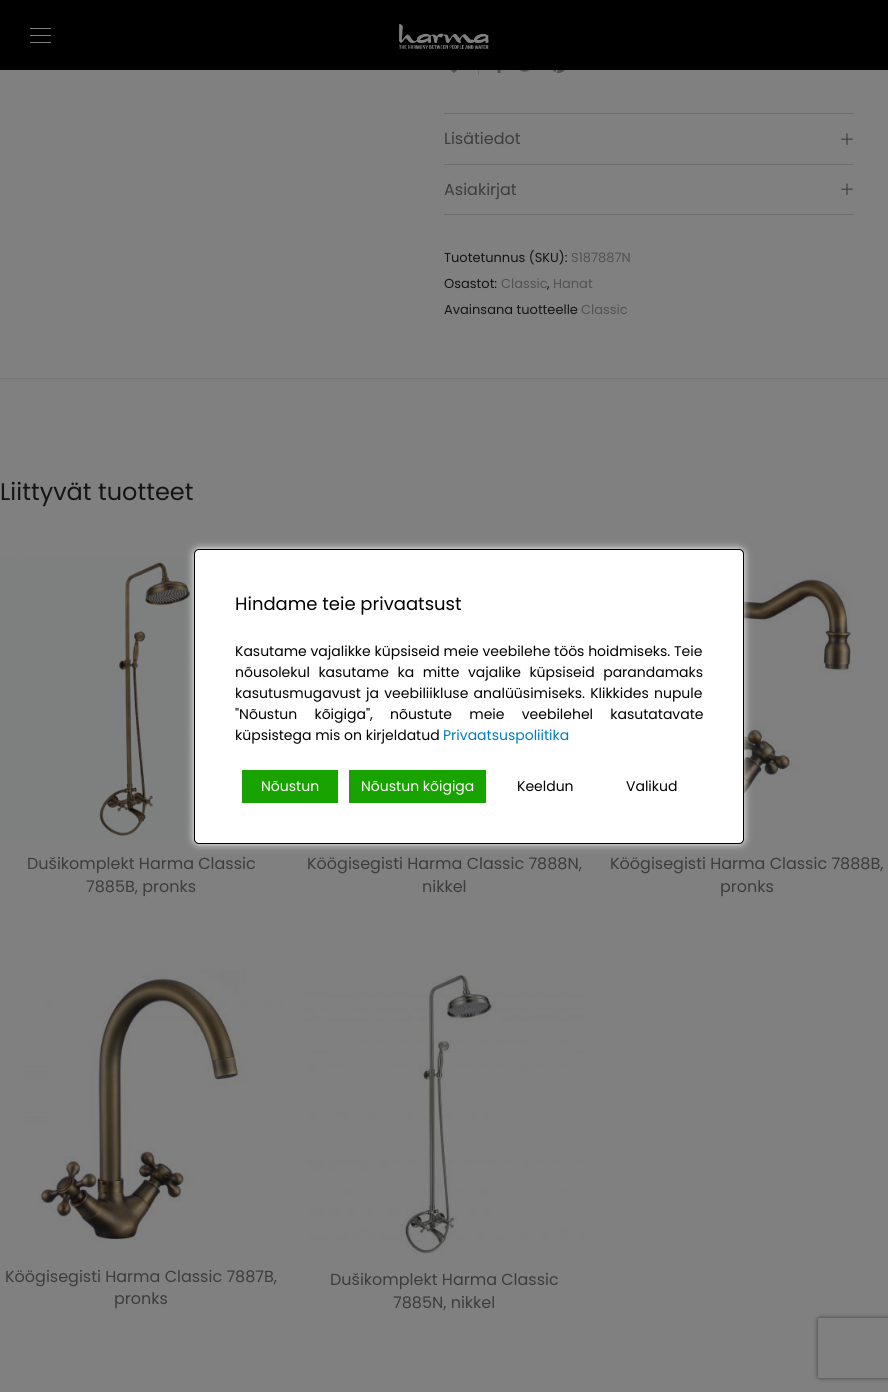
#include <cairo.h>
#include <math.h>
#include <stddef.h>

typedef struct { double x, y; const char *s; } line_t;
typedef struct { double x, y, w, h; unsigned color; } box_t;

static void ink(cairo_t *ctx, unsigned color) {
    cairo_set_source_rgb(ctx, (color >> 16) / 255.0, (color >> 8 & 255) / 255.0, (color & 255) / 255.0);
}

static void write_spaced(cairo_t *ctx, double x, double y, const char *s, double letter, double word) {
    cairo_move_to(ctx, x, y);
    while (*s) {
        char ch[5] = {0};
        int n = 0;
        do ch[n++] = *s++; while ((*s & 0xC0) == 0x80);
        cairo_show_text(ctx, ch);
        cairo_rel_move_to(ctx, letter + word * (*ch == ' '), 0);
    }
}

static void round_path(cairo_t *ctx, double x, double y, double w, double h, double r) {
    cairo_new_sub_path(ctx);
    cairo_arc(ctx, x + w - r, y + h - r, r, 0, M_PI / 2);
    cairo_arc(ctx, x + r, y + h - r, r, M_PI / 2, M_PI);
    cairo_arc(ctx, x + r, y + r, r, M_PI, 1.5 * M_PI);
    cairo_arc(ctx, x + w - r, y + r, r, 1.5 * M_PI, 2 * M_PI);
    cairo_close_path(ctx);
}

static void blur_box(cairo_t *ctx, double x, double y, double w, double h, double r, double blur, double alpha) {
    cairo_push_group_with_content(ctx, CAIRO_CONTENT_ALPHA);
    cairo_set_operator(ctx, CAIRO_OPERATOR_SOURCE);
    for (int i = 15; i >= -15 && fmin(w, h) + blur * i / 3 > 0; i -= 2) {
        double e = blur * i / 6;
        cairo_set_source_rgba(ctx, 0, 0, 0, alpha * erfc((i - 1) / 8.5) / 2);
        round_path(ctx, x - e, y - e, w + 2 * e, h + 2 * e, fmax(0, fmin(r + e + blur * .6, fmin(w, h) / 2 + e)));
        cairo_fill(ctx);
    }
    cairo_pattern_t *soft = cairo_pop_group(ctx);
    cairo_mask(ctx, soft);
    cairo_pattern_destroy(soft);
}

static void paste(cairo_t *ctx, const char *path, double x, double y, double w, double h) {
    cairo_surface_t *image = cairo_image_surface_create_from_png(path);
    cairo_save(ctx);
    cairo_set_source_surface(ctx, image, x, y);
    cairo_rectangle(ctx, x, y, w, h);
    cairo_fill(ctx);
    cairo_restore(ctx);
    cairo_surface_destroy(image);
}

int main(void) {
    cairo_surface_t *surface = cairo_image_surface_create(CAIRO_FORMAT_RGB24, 888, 1392);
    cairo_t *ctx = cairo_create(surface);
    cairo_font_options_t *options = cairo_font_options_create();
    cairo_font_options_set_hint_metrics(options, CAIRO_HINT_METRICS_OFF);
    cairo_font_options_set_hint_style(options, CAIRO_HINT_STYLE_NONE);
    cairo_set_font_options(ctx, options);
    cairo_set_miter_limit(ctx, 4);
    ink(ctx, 0x808080);
    cairo_paint(ctx);
    {
        static const box_t items[] = {
            {0, 0, 888, 70, 0x000000},
            {30, 28, 21, 1, 0x808080},
            {30, 35, 21, 1, 0x808080},
            {30, 42, 21, 1, 0x808080},
        };
        for (size_t i = 0; i < sizeof items / sizeof *items; i++) {
            ink(ctx, items[i].color);
            cairo_rectangle(ctx, items[i].x, items[i].y, items[i].w, items[i].h);
            cairo_fill(ctx);
        }
    }
    paste(ctx, "media/1.png", 399, 24, 90, 25);
    ink(ctx, 0x6D6D6D);
    cairo_rectangle(ctx, 478, 70, 1, 5);
    cairo_fill(ctx);
    paste(ctx, "media/2.png", 450, 70, 8, 3);
    paste(ctx, "media/3.png", 497, 70, 4, 3);
    paste(ctx, "media/4.png", 519, 70, 11, 2);
    paste(ctx, "media/5.png", 552, 70, 13, 3);
    cairo_rectangle(ctx, 444, 113, 410, 1);
    cairo_fill(ctx);
    cairo_select_font_face(ctx, "Poppins", CAIRO_FONT_SLANT_NORMAL, CAIRO_FONT_WEIGHT_NORMAL);
    cairo_set_font_size(ctx, 16);
    ink(ctx, 0x3C3C3C);
    cairo_move_to(ctx, 444, 144);
    cairo_show_text(ctx, "Lisätiedot");
    paste(ctx, "media/6.png", 841, 133, 12, 12);
    ink(ctx, 0x6D6D6D);
    cairo_rectangle(ctx, 444, 214, 410, 1);
    cairo_fill(ctx);
    cairo_rectangle(ctx, 444, 164, 410, 1);
    cairo_fill(ctx);
    ink(ctx, 0x3C3C3C);
    cairo_move_to(ctx, 444, 195);
    cairo_show_text(ctx, "Asiakirjat");
    paste(ctx, "media/6.png", 841, 183, 12, 12);
    cairo_set_font_size(ctx, 13);
    ink(ctx, 0x141414);
    cairo_move_to(ctx, 444, 262);
    cairo_show_text(ctx, "Tuotetunnus (SKU):");
    ink(ctx, 0x525252);
    cairo_move_to(ctx, 571, 262);
    cairo_show_text(ctx, "S187887N");
    ink(ctx, 0x141414);
    cairo_move_to(ctx, 444, 288);
    cairo_show_text(ctx, "Osastot:");
    ink(ctx, 0x525252);
    cairo_move_to(ctx, 501, 288);
    cairo_show_text(ctx, "Classic");
    ink(ctx, 0x141414);
    cairo_move_to(ctx, 547, 288);
    cairo_show_text(ctx, ",");
    ink(ctx, 0x525252);
    cairo_move_to(ctx, 553, 288);
    cairo_show_text(ctx, "Hanat");
    ink(ctx, 0x141414);
    cairo_move_to(ctx, 444, 314);
    cairo_show_text(ctx, "Avainsana tuotteelle");
    ink(ctx, 0x525252);
    cairo_move_to(ctx, 581, 314);
    cairo_show_text(ctx, "Classic");
    ink(ctx, 0x777777);
    cairo_rectangle(ctx, 0, 378, 888, 1);
    cairo_fill(ctx);
    cairo_set_font_size(ctx, 24);
    ink(ctx, 0x141414);
    cairo_move_to(ctx, 0, 500);
    cairo_show_text(ctx, "Liittyvät tuotteet");
    paste(ctx, "media/7.png", 0, 557, 194, 282);
    cairo_set_font_size(ctx, 16);
    ink(ctx, 0x3C3C3C);
    {
        static const line_t items[] = {
            {27, 869, "Dušikomplekt Harma Classic"},
            {86, 892, "7885B, pronks"},
            {307, 869, "Köögisegisti Harma Classic 7888N,"},
            {422, 892, "nikkel"},
        };
        for (size_t i = 0; i < sizeof items / sizeof *items; i++) {
            cairo_move_to(ctx, items[i].x, items[i].y);
            cairo_show_text(ctx, items[i].s);
        }
    }
    paste(ctx, "media/8.png", 744, 557, 144, 282);
    cairo_move_to(ctx, 610, 869);
    cairo_show_text(ctx, "Köögisegisti Harma Classic 7888B,");
    cairo_move_to(ctx, 720, 892);
    cairo_show_text(ctx, "pronks");
    paste(ctx, "media/9.png", 0, 969, 283, 283);
    cairo_move_to(ctx, 5, 1282);
    cairo_show_text(ctx, "Köögisegisti Harma Classic 7887B,");
    cairo_move_to(ctx, 114, 1304);
    cairo_show_text(ctx, "pronks");
    paste(ctx, "media/10.png", 303, 969, 282, 286);
    cairo_move_to(ctx, 330, 1285);
    cairo_show_text(ctx, "Dušikomplekt Harma Classic");
    cairo_move_to(ctx, 393, 1308);
    cairo_show_text(ctx, "7885N, nikkel");
    ink(ctx, 0xFFFFFF);
    blur_box(ctx, 194, 549, 550, 295, 5, 4, 1);
    ink(ctx, 0xFFFFFF);
    round_path(ctx, 194.5, 549.5, 549, 294, 4.5);
    cairo_fill_preserve(ctx);
    ink(ctx, 0x000000);
    cairo_set_line_width(ctx, 1);
    cairo_stroke(ctx);
    cairo_set_font_size(ctx, 18);
    cairo_move_to(ctx, 235, 610);
    cairo_show_text(ctx, "Hindame teie privaatsust");
    cairo_set_font_size(ctx, 14);
    cairo_move_to(ctx, 235, 656);
    cairo_show_text(ctx, "Kasutame vajalikke küpsiseid meie veebilehe töös hoidmiseks. Teie");
    write_spaced(ctx, 235, 677, "nõusolekul kasutame ka mitte vajalike küpsiseid parandamaks", 0, 4.75);
    write_spaced(ctx, 235, 698, "kasutusmugavust ja veebiliikluse analüüsimiseks. Klikkides nupule", 0, 1.5);
    write_spaced(ctx, 235, 719, "\"Nõustun kõigiga\", nõustute meie veebilehel kasutatavate", 0, 13.5);
    cairo_move_to(ctx, 235, 740);
    cairo_show_text(ctx, "küpsistega mis on kirjeldatud");
    ink(ctx, 0x007CBA);
    cairo_move_to(ctx, 443, 740);
    cairo_show_text(ctx, "Privaatsuspoliitika");
    ink(ctx, 0x18A300);
    cairo_rectangle(ctx, 242, 770, 96, 33);
    cairo_fill(ctx);
    ink(ctx, 0xFFFFFF);
    cairo_move_to(ctx, 261, 791);
    cairo_show_text(ctx, "Nõustun");
    ink(ctx, 0x18A300);
    cairo_rectangle(ctx, 349, 770, 137, 33);
    cairo_fill(ctx);
    ink(ctx, 0xFFFFFF);
    cairo_move_to(ctx, 361, 791);
    cairo_show_text(ctx, "Nõustun kõigiga");
    ink(ctx, 0x000000);
    cairo_move_to(ctx, 517, 791);
    cairo_show_text(ctx, "Keeldun");
    cairo_move_to(ctx, 626, 791);
    cairo_show_text(ctx, "Valikud");
    cairo_save(ctx);
    cairo_set_fill_rule(ctx, CAIRO_FILL_RULE_EVEN_ODD);
    cairo_new_path(ctx);
    cairo_move_to(ctx, 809, 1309);
    cairo_line_to(ctx, 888, 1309);
    cairo_line_to(ctx, 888, 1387);
    cairo_line_to(ctx, 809, 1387);
    cairo_close_path(ctx);
    cairo_move_to(ctx, 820, 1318);
    cairo_line_to(ctx, 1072, 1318);
    cairo_curve_to(ctx, 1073, 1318, 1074, 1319, 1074, 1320);
    cairo_line_to(ctx, 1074, 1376);
    cairo_curve_to(ctx, 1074, 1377, 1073, 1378, 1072, 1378);
    cairo_line_to(ctx, 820, 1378);
    cairo_curve_to(ctx, 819, 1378, 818, 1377, 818, 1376);
    cairo_line_to(ctx, 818, 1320);
    cairo_curve_to(ctx, 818, 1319, 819, 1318, 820, 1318);
    cairo_close_path(ctx);
    cairo_clip(ctx);
    ink(ctx, 0x404040);
    blur_box(ctx, 818, 1318, 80, 60, 2, 2.5, 1);
    cairo_restore(ctx);
    cairo_surface_write_to_png(surface, "image.png");
    cairo_font_options_destroy(options);
    cairo_destroy(ctx);
    cairo_surface_destroy(surface);
    return 0;
}
